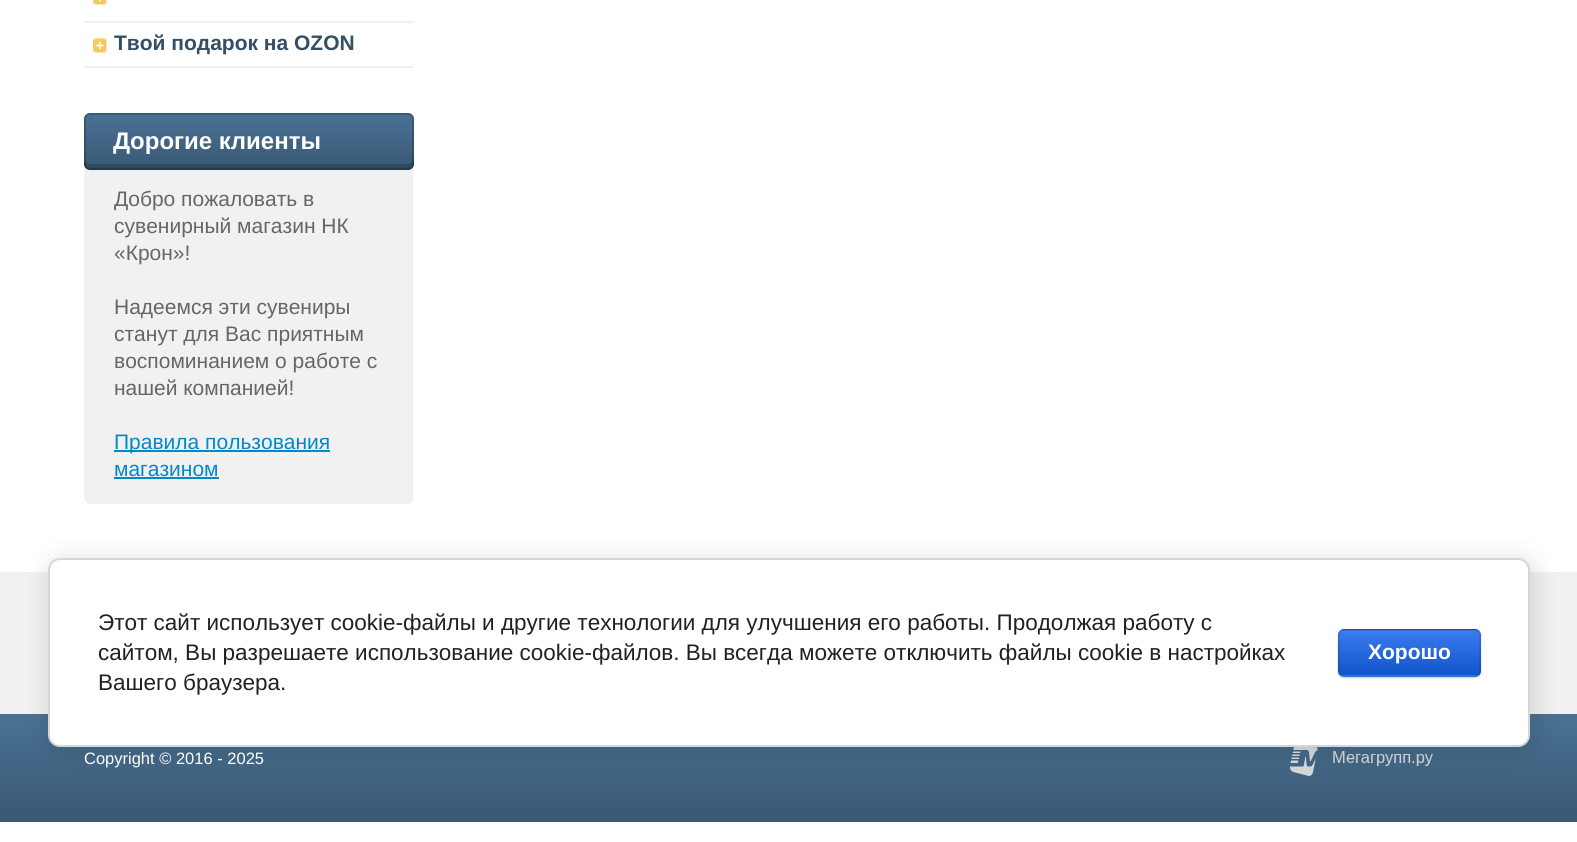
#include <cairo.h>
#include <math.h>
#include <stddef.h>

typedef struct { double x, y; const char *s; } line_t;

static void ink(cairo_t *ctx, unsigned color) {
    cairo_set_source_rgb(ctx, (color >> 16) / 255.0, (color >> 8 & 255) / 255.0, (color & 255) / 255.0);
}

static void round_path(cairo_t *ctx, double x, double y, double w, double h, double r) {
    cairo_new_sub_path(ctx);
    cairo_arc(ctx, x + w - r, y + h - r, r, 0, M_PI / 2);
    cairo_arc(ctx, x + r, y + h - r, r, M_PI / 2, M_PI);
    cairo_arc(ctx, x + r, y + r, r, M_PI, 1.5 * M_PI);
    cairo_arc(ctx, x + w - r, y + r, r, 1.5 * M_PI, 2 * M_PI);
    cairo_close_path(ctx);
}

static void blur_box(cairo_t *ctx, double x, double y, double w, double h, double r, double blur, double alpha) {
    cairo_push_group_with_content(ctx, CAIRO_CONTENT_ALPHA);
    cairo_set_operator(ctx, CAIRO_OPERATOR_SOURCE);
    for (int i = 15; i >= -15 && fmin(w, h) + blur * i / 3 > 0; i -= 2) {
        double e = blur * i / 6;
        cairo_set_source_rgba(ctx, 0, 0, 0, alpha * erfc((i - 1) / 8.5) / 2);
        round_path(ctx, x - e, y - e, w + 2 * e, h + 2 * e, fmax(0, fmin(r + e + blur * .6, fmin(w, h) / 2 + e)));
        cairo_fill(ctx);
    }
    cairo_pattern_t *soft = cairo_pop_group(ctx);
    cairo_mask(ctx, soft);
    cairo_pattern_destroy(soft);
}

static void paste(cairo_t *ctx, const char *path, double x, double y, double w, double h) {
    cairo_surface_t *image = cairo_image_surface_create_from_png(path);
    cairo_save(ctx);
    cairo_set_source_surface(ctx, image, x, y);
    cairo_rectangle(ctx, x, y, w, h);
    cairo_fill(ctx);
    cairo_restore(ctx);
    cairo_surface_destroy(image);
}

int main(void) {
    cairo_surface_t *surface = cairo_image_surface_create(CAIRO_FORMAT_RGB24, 1577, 842);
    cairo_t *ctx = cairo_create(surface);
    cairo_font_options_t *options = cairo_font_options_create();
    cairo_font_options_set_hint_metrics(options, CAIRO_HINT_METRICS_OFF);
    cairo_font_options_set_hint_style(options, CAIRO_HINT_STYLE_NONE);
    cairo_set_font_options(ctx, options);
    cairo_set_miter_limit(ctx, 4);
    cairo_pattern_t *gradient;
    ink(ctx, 0xFFFFFF);
    cairo_paint(ctx);
    paste(ctx, "media/1.png", 93, 0, 14, 5);
    ink(ctx, 0xF1F1F1);
    cairo_rectangle(ctx, 84, 21, 330, 2);
    cairo_fill(ctx);
    paste(ctx, "media/2.png", 93, 38, 14, 15);
    cairo_rectangle(ctx, 84, 66, 330, 2);
    cairo_fill(ctx);
    cairo_select_font_face(ctx, "Liberation Sans", CAIRO_FONT_SLANT_NORMAL, CAIRO_FONT_WEIGHT_BOLD);
    cairo_set_font_size(ctx, 21);
    ink(ctx, 0x344E66);
    cairo_move_to(ctx, 114, 50);
    cairo_show_text(ctx, "Твой подарок на OZON");
    ink(ctx, 0xF1F1F1);
    cairo_new_path(ctx);
    cairo_move_to(ctx, 84, 162);
    cairo_line_to(ctx, 413, 162);
    cairo_line_to(ctx, 413, 498);
    cairo_curve_to(ctx, 413, 501.5, 410.5, 504, 407, 504);
    cairo_line_to(ctx, 90, 504);
    cairo_curve_to(ctx, 86.5, 504, 84, 501.5, 84, 498);
    cairo_close_path(ctx);
    cairo_fill(ctx);
    gradient = cairo_pattern_create_linear(249, 112, 249, 170);
    cairo_pattern_add_color_stop_rgba(gradient, 0, 0.29, 0.447, 0.588, 1);
    cairo_pattern_add_color_stop_rgba(gradient, 1, 0.224, 0.345, 0.451, 1);
    cairo_set_source(ctx, gradient);
    cairo_pattern_destroy(gradient);
    round_path(ctx, 84, 113, 330, 57, 6);
    cairo_fill(ctx);
    round_path(ctx, 85, 114, 328, 55, 5);
    cairo_set_source_rgba(ctx, 0, 0, 0, 0.2);
    cairo_stroke(ctx);
    cairo_new_path(ctx);
    cairo_move_to(ctx, 84, 158);
    cairo_line_to(ctx, 84, 164);
    cairo_curve_to(ctx, 84, 167, 87, 170, 90, 170);
    cairo_line_to(ctx, 408, 170);
    cairo_curve_to(ctx, 411, 170, 414, 167, 414, 164);
    cairo_line_to(ctx, 414, 158);
    cairo_curve_to(ctx, 414, 161, 411, 164, 408, 164);
    cairo_line_to(ctx, 90, 164);
    cairo_curve_to(ctx, 87, 164, 84, 161, 84, 158);
    cairo_close_path(ctx);
    cairo_fill(ctx);
    cairo_set_font_size(ctx, 24);
    ink(ctx, 0xFFFFFF);
    cairo_move_to(ctx, 113, 149);
    cairo_show_text(ctx, "Дорогие клиенты");
    cairo_select_font_face(ctx, "Liberation Sans", CAIRO_FONT_SLANT_NORMAL, CAIRO_FONT_WEIGHT_NORMAL);
    cairo_set_font_size(ctx, 21);
    ink(ctx, 0x666666);
    {
        static const line_t items[] = {
            {114, 206, "Добро пожаловать в"},
            {114, 233, "сувенирный магазин НК"},
            {114, 260, "«Крон»!"},
            {114, 314, "Надеемся эти сувениры"},
            {114, 341, "станут для Вас приятным"},
            {114, 368, "воспоминанием о работе с"},
            {114, 395, "нашей компанией!"},
        };
        for (size_t i = 0; i < sizeof items / sizeof *items; i++) {
            cairo_move_to(ctx, items[i].x, items[i].y);
            cairo_show_text(ctx, items[i].s);
        }
    }
    ink(ctx, 0x0088CC);
    cairo_rectangle(ctx, 114, 450, 216, 2);
    cairo_fill(ctx);
    cairo_move_to(ctx, 114, 449);
    cairo_show_text(ctx, "Правила пользования");
    cairo_move_to(ctx, 114, 476);
    cairo_show_text(ctx, "магазином");
    cairo_rectangle(ctx, 114, 477, 105, 2);
    cairo_fill(ctx);
    ink(ctx, 0xF1F1F1);
    cairo_rectangle(ctx, 0, 572, 1577, 142);
    cairo_fill(ctx);
    gradient = cairo_pattern_create_linear(789, 714, 789, 822);
    cairo_pattern_add_color_stop_rgba(gradient, 0, 0.29, 0.447, 0.584, 1);
    cairo_pattern_add_color_stop_rgba(gradient, 1, 0.224, 0.345, 0.451, 1);
    cairo_set_source(ctx, gradient);
    cairo_pattern_destroy(gradient);
    cairo_rectangle(ctx, 0, 714, 1577, 108);
    cairo_fill(ctx);
    paste(ctx, "media/3.png", 1290, 747, 143, 29);
    ink(ctx, 0x000000);
    blur_box(ctx, 51, 561, 1482, 189, 12, 13.5, 0.14);
    ink(ctx, 0xFFFFFF);
    round_path(ctx, 49, 559, 1480, 187, 11);
    cairo_fill_preserve(ctx);
    ink(ctx, 0xD6D6D6);
    cairo_stroke(ctx);
    cairo_set_font_size(ctx, 22.5);
    ink(ctx, 0x212121);
    {
        static const line_t items[] = {
            {98, 630, "Этот сайт использует cookie-файлы и другие технологии для улучшения его работы. Продолжая работу с"},
            {98, 660, "сайтом, Вы разрешаете использование cookie-файлов. Вы всегда можете отключить файлы cookie в настройках"},
            {98, 690, "Вашего браузера."},
        };
        for (size_t i = 0; i < sizeof items / sizeof *items; i++) {
            cairo_move_to(ctx, items[i].x, items[i].y);
            cairo_show_text(ctx, items[i].s);
        }
    }
    ink(ctx, 0x000000);
    blur_box(ctx, 1338, 630, 143, 48, 6, 1, 0.2);
    cairo_save(ctx);
    round_path(ctx, 1338, 629, 143, 48, 6);
    cairo_clip(ctx);
    gradient = cairo_pattern_create_linear(1409, 585, 1409, 630);
    cairo_pattern_add_color_stop_rgba(gradient, 0, 0.231, 0.486, 0.937, 1);
    cairo_pattern_add_color_stop_rgba(gradient, 1, 0.067, 0.333, 0.8, 1);
    cairo_set_source(ctx, gradient);
    cairo_pattern_destroy(gradient);
    cairo_rectangle(ctx, 1338, 629, 143, 1);
    cairo_fill(ctx);
    gradient = cairo_pattern_create_linear(1409, 630, 1409, 675);
    cairo_pattern_add_color_stop_rgba(gradient, 0, 0.231, 0.486, 0.937, 1);
    cairo_pattern_add_color_stop_rgba(gradient, 1, 0.067, 0.333, 0.8, 1);
    cairo_set_source(ctx, gradient);
    cairo_pattern_destroy(gradient);
    cairo_rectangle(ctx, 1338, 630, 143, 45);
    cairo_fill(ctx);
    gradient = cairo_pattern_create_linear(1409, 675, 1409, 720);
    cairo_pattern_add_color_stop_rgba(gradient, 0, 0.231, 0.486, 0.937, 1);
    cairo_pattern_add_color_stop_rgba(gradient, 1, 0.067, 0.333, 0.8, 1);
    cairo_set_source(ctx, gradient);
    cairo_pattern_destroy(gradient);
    cairo_rectangle(ctx, 1338, 675, 143, 2);
    cairo_fill(ctx);
    cairo_restore(ctx);
    round_path(ctx, 1339, 630, 141, 46, 5);
    cairo_set_source_rgba(ctx, 0, 0, 0, 0.1);
    cairo_stroke(ctx);
    cairo_select_font_face(ctx, "Liberation Sans", CAIRO_FONT_SLANT_NORMAL, CAIRO_FONT_WEIGHT_BOLD);
    cairo_set_font_size(ctx, 21);
    ink(ctx, 0xFFFFFF);
    cairo_move_to(ctx, 1368, 659);
    cairo_show_text(ctx, "Хорошо");
    cairo_select_font_face(ctx, "Liberation Sans", CAIRO_FONT_SLANT_NORMAL, CAIRO_FONT_WEIGHT_NORMAL);
    cairo_set_font_size(ctx, 16.5);
    cairo_move_to(ctx, 84, 764);
    cairo_show_text(ctx, "Copyright © 2016 - 2025");
    cairo_surface_write_to_png(surface, "image.png");
    cairo_font_options_destroy(options);
    cairo_destroy(ctx);
    cairo_surface_destroy(surface);
    return 0;
}
